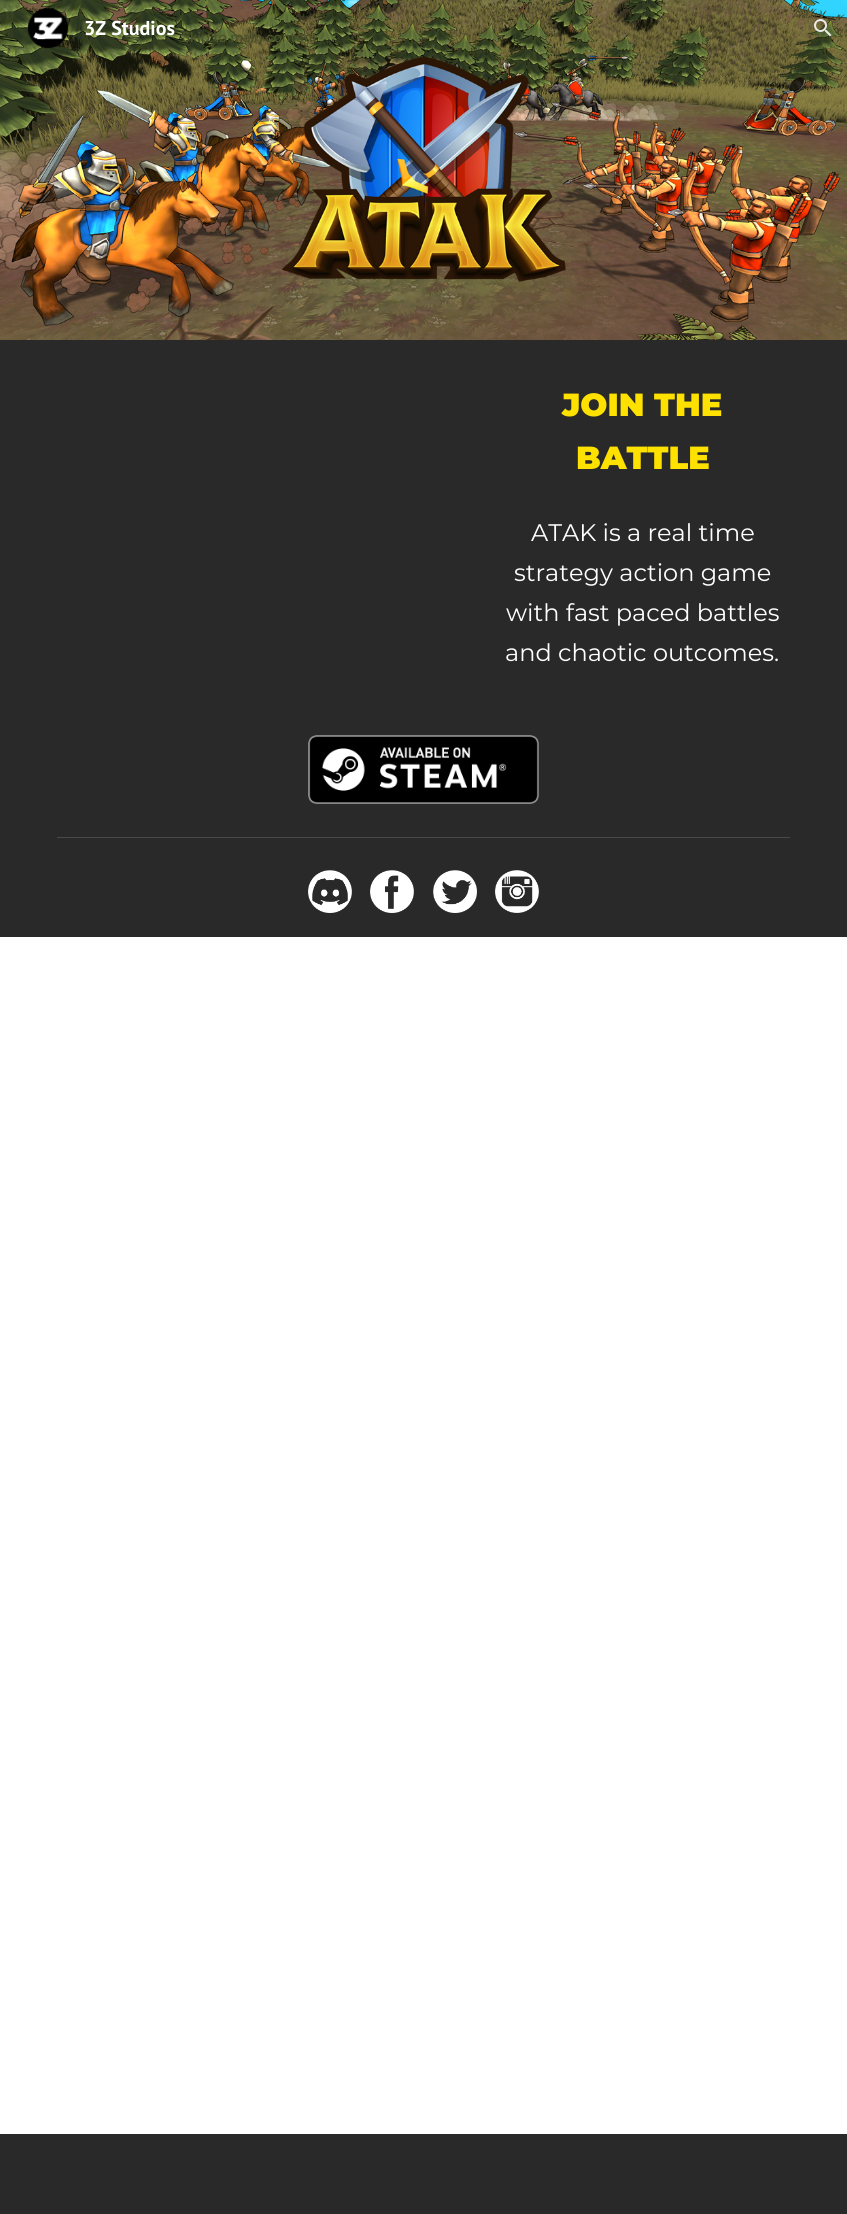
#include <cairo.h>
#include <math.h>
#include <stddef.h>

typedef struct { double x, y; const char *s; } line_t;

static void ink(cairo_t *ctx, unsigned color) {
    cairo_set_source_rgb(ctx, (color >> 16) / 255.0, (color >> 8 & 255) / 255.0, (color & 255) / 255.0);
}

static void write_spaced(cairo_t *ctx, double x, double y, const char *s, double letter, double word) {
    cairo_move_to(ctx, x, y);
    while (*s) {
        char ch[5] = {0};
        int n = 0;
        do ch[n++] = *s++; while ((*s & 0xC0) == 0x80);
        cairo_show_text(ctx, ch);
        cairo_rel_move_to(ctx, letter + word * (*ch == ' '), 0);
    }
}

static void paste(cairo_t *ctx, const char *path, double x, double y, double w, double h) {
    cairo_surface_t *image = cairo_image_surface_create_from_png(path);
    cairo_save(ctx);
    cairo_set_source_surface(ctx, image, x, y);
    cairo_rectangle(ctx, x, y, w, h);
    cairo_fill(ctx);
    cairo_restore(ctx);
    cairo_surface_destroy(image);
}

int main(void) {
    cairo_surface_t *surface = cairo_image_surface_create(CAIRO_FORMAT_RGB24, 847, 2214);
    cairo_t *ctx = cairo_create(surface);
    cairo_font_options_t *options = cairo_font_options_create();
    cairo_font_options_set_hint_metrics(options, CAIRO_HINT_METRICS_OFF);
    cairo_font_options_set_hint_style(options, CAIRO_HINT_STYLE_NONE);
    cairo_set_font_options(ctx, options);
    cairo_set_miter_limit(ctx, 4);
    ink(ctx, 0xFFFFFF);
    cairo_paint(ctx);
    paste(ctx, "media/3.png", 0, 0, 847, 340);
    paste(ctx, "media/1.png", 27, 7, 42, 42);
    cairo_select_font_face(ctx, "PT Sans", CAIRO_FONT_SLANT_NORMAL, CAIRO_FONT_WEIGHT_BOLD);
    cairo_set_font_size(ctx, 20);
    ink(ctx, 0xFFFFFF);
    cairo_move_to(ctx, 84, 35);
    cairo_show_text(ctx, "3Z Studios");
    paste(ctx, "media/2.png", 814, 19, 18, 18);
    ink(ctx, 0x292929);
    cairo_rectangle(ctx, 0, 340, 847, 597);
    cairo_fill(ctx);
    cairo_select_font_face(ctx, "Montserrat Black", CAIRO_FONT_SLANT_NORMAL, CAIRO_FONT_WEIGHT_NORMAL);
    cairo_set_font_size(ctx, 32);
    ink(ctx, 0xFFE100);
    cairo_move_to(ctx, 562, 416);
    cairo_show_text(ctx, "JOIN THE");
    cairo_move_to(ctx, 576, 469);
    cairo_show_text(ctx, "BATTLE");
    cairo_select_font_face(ctx, "Montserrat", CAIRO_FONT_SLANT_NORMAL, CAIRO_FONT_WEIGHT_NORMAL);
    cairo_set_font_size(ctx, 24);
    ink(ctx, 0xFFFFFF);
    {
        static const line_t items[] = {
            {531, 541, "ATAK is a real time"},
            {514, 581, "strategy action game"},
            {506, 621, "with fast paced battles"},
            {505, 661, "and chaotic outcomes."},
        };
        for (size_t i = 0; i < sizeof items / sizeof *items; i++) {
            cairo_move_to(ctx, items[i].x, items[i].y);
            cairo_show_text(ctx, items[i].s);
        }
    }
    paste(ctx, "media/4.png", 308, 735, 231, 69);
    ink(ctx, 0x494949);
    cairo_rectangle(ctx, 57, 837, 733, 1);
    cairo_fill(ctx);
    paste(ctx, "media/5.png", 308, 870, 44, 43);
    paste(ctx, "media/6.png", 370, 870, 44, 43);
    paste(ctx, "media/7.png", 433, 870, 44, 43);
    paste(ctx, "media/8.png", 495, 870, 44, 43);
    ink(ctx, 0x292929);
    cairo_rectangle(ctx, 0, 2134, 847, 80);
    cairo_fill(ctx);
    cairo_select_font_face(ctx, "Google Sans Medium", CAIRO_FONT_SLANT_NORMAL, CAIRO_FONT_WEIGHT_NORMAL);
    cairo_set_font_size(ctx, 14);
    ink(ctx, 0x4C532A);
    write_spaced(ctx, 182, 42, "Skip to main content", 0.1, 0);
    cairo_surface_write_to_png(surface, "image.png");
    cairo_font_options_destroy(options);
    cairo_destroy(ctx);
    cairo_surface_destroy(surface);
    return 0;
}
